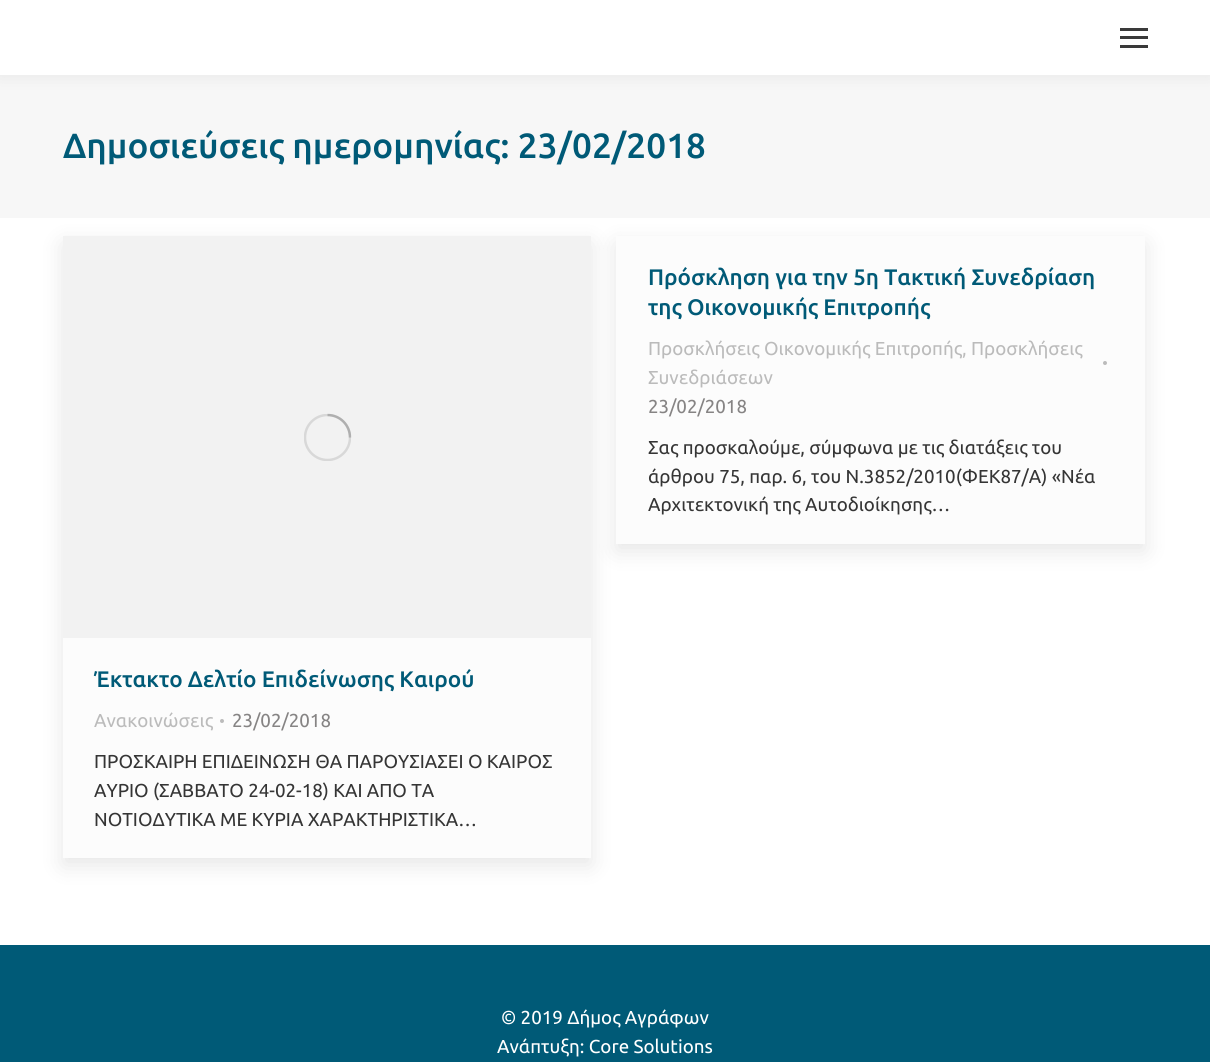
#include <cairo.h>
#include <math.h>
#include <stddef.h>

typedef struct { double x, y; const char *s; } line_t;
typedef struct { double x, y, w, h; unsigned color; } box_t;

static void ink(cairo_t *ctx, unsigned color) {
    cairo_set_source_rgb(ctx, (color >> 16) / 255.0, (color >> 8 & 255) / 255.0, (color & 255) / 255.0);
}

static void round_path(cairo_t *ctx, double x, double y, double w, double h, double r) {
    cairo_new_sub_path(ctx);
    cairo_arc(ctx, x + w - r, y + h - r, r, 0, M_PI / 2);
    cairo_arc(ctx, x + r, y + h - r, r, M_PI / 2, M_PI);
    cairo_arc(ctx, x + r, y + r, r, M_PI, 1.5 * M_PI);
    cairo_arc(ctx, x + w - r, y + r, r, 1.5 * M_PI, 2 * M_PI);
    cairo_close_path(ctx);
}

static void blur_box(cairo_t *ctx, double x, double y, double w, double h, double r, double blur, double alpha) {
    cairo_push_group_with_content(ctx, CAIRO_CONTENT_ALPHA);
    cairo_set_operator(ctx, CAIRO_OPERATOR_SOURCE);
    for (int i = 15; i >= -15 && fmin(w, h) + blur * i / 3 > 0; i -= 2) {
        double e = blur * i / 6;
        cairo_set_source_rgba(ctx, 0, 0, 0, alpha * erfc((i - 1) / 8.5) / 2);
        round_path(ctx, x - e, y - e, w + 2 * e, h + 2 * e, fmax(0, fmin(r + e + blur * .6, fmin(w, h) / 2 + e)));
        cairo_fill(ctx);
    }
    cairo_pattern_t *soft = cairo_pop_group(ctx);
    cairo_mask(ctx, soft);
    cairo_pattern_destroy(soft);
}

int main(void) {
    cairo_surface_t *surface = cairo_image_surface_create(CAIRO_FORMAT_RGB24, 1210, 1062);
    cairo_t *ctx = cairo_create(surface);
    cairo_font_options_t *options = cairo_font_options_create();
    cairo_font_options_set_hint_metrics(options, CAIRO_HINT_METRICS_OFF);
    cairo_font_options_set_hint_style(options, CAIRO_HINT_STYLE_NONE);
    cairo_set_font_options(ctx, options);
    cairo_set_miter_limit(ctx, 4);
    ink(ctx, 0xFFFFFF);
    cairo_paint(ctx);
    ink(ctx, 0xF7F7F7);
    cairo_rectangle(ctx, 0, 75, 1210, 143);
    cairo_fill(ctx);
    ink(ctx, 0x000000);
    blur_box(ctx, -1, -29, 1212, 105, 0, 9.5, 0.07);
    {
        static const box_t items[] = {
            {0, 0, 1210, 75, 0xFFFFFF},
            {1120, 36, 28, 3, 0x3A3A3A},
            {1120, 28, 28, 3, 0x3A3A3A},
            {1120, 45, 28, 3, 0x3A3A3A},
        };
        for (size_t i = 0; i < sizeof items / sizeof *items; i++) {
            ink(ctx, items[i].color);
            cairo_rectangle(ctx, items[i].x, items[i].y, items[i].w, items[i].h);
            cairo_fill(ctx);
        }
    }
    cairo_select_font_face(ctx, "Ubuntu Medium", CAIRO_FONT_SLANT_NORMAL, CAIRO_FONT_WEIGHT_NORMAL);
    cairo_set_font_size(ctx, 35);
    ink(ctx, 0x005A77);
    cairo_move_to(ctx, 63, 158);
    cairo_show_text(ctx, "Δημοσιεύσεις ημερομηνίας: 23/02/2018");
    ink(ctx, 0x000000);
    blur_box(ctx, 63, 244, 528, 621, 0, 11, 0.1);
    ink(ctx, 0xF2F2F2);
    cairo_rectangle(ctx, 63, 236, 528, 402);
    cairo_fill(ctx);
    ink(ctx, 0x000000);
    blur_box(ctx, 616, 244, 529, 307, 0, 11, 0.1);
    ink(ctx, 0xFCFCFC);
    cairo_rectangle(ctx, 616, 236, 529, 308);
    cairo_fill(ctx);
    cairo_set_font_size(ctx, 22.5);
    ink(ctx, 0x005A77);
    cairo_move_to(ctx, 648, 285);
    cairo_show_text(ctx, "Πρόσκληση για την 5η Τακτική Συνεδρίαση");
    cairo_move_to(ctx, 648, 315);
    cairo_show_text(ctx, "της Οικονομικής Επιτροπής");
    cairo_select_font_face(ctx, "Ubuntu", CAIRO_FONT_SLANT_NORMAL, CAIRO_FONT_WEIGHT_NORMAL);
    cairo_set_font_size(ctx, 18.75);
    ink(ctx, 0xBBBBBB);
    cairo_move_to(ctx, 648, 355);
    cairo_show_text(ctx, "Προσκλήσεις Οικονομικής Επιτροπής, Προσκλήσεις");
    cairo_new_path(ctx);
    cairo_arc(ctx, 1105, 363, 2, 0, 2 * M_PI);
    cairo_fill(ctx);
    cairo_move_to(ctx, 648, 384);
    cairo_show_text(ctx, "Συνεδριάσεων");
    ink(ctx, 0x868484);
    cairo_move_to(ctx, 648, 413);
    cairo_show_text(ctx, "23/02/2018");
    ink(ctx, 0x353535);
    {
        static const line_t items[] = {
            {648, 454, "Σας προσκαλούμε, σύμφωνα με τις διατάξεις του"},
            {648, 483, "άρθρου 75, παρ. 6, του Ν.3852/2010(ΦΕΚ87/Α) «Νέα"},
            {648, 511, "Αρχιτεκτονική της Αυτοδιοίκησης…"},
        };
        for (size_t i = 0; i < sizeof items / sizeof *items; i++) {
            cairo_move_to(ctx, items[i].x, items[i].y);
            cairo_show_text(ctx, items[i].s);
        }
    }
    ink(ctx, 0xFCFCFC);
    cairo_rectangle(ctx, 63, 638, 528, 220);
    cairo_fill(ctx);
    cairo_save(ctx);
    cairo_rectangle(ctx, 304, 414, 47, 47);
    cairo_clip(ctx);
    cairo_arc(ctx, 327.5, 437.5, 22.5, 0, 2 * M_PI);
    ink(ctx, 0xD8D8D8);
    cairo_set_line_width(ctx, 2.5);
    cairo_stroke(ctx);
    cairo_restore(ctx);
    cairo_new_path(ctx);
    cairo_move_to(ctx, 350, 437.5);
    cairo_curve_to(ctx, 350, 425, 340, 415, 327.5, 415);
    cairo_set_source_rgba(ctx, 0.208, 0.208, 0.208, 0.25);
    cairo_set_line_width(ctx, 2.5);
    cairo_stroke(ctx);
    cairo_select_font_face(ctx, "Ubuntu Medium", CAIRO_FONT_SLANT_NORMAL, CAIRO_FONT_WEIGHT_NORMAL);
    cairo_set_font_size(ctx, 22.5);
    ink(ctx, 0x005A77);
    cairo_move_to(ctx, 94, 687);
    cairo_show_text(ctx, "Έκτακτο Δελτίο Επιδείνωσης Καιρού");
    cairo_select_font_face(ctx, "Ubuntu", CAIRO_FONT_SLANT_NORMAL, CAIRO_FONT_WEIGHT_NORMAL);
    cairo_set_font_size(ctx, 18.75);
    ink(ctx, 0xBBBBBB);
    cairo_move_to(ctx, 94, 727);
    cairo_show_text(ctx, "Ανακοινώσεις");
    cairo_new_path(ctx);
    cairo_arc(ctx, 222, 721, 2, 0, 2 * M_PI);
    cairo_fill(ctx);
    ink(ctx, 0x868484);
    cairo_move_to(ctx, 232, 727);
    cairo_show_text(ctx, "23/02/2018");
    ink(ctx, 0x353535);
    {
        static const line_t items[] = {
            {94, 768, "ΠΡΟΣΚΑΙΡΗ ΕΠΙΔΕΙΝΩΣΗ ΘΑ ΠΑΡΟΥΣΙΑΣΕΙ Ο ΚΑΙΡΟΣ"},
            {94, 797, "ΑΥΡΙΟ (ΣΑΒΒΑΤΟ 24-02-18) ΚΑΙ ΑΠΟ ΤΑ"},
            {94, 826, "ΝΟΤΙΟΔΥΤΙΚΑ ΜΕ ΚΥΡΙΑ ΧΑΡΑΚΤΗΡΙΣΤΙΚΑ…"},
        };
        for (size_t i = 0; i < sizeof items / sizeof *items; i++) {
            cairo_move_to(ctx, items[i].x, items[i].y);
            cairo_show_text(ctx, items[i].s);
        }
    }
    ink(ctx, 0x005A77);
    cairo_rectangle(ctx, 0, 945, 1210, 117);
    cairo_fill(ctx);
    ink(ctx, 0xFFFFFF);
    cairo_move_to(ctx, 501, 1024);
    cairo_show_text(ctx, "© 2019 Δήμος Αγράφων");
    cairo_move_to(ctx, 497, 1053);
    cairo_show_text(ctx, "Ανάπτυξη: Core Solutions");
    cairo_surface_write_to_png(surface, "image.png");
    cairo_font_options_destroy(options);
    cairo_destroy(ctx);
    cairo_surface_destroy(surface);
    return 0;
}
